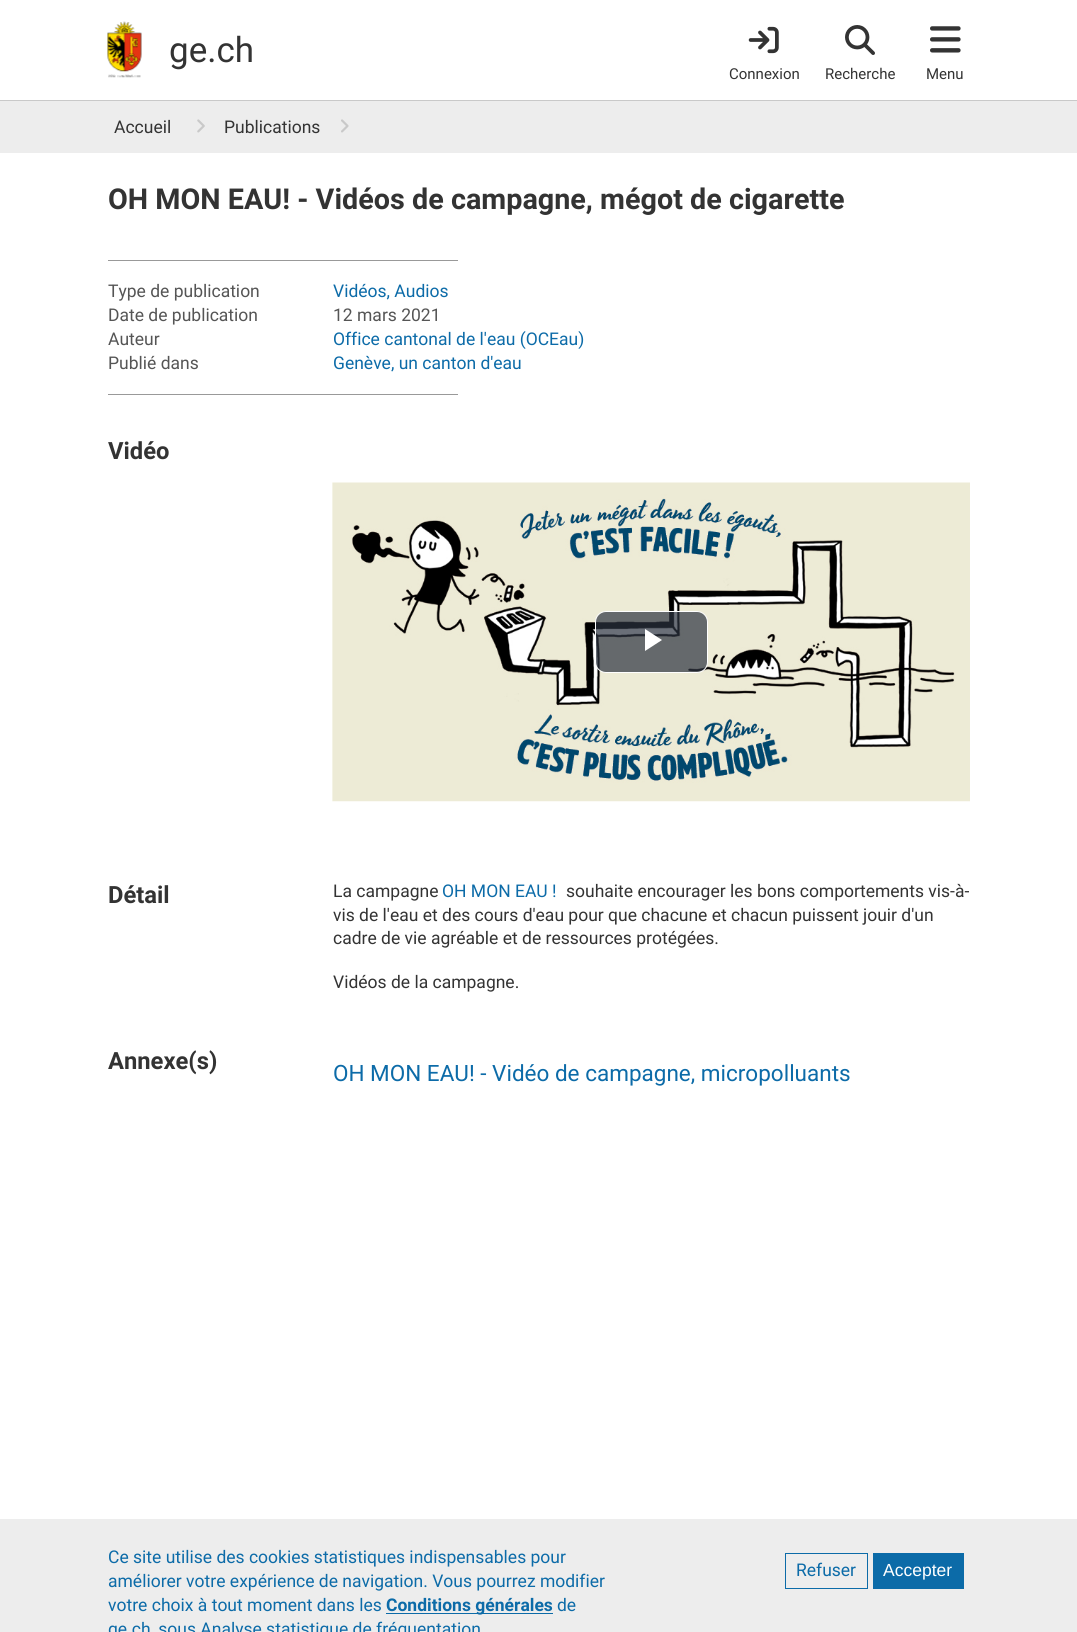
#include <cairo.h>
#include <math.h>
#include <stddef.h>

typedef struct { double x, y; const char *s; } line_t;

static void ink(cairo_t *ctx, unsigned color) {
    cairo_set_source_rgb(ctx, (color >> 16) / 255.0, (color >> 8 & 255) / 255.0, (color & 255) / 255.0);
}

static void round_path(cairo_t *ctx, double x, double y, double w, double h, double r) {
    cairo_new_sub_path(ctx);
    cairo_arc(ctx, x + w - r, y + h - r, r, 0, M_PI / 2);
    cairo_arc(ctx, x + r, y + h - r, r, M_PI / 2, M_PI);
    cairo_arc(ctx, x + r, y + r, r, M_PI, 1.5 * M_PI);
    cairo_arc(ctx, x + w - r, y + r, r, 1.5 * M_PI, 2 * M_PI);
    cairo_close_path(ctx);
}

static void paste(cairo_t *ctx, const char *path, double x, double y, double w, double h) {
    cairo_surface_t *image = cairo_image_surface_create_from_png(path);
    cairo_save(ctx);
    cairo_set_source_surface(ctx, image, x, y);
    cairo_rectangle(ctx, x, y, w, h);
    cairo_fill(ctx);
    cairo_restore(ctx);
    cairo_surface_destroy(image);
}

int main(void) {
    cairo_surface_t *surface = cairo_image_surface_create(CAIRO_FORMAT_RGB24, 1077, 1632);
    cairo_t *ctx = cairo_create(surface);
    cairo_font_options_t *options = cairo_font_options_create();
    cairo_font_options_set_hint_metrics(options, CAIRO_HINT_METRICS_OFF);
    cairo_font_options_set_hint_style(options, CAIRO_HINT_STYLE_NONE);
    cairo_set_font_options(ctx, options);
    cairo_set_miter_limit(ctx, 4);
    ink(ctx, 0xFFFFFF);
    cairo_paint(ctx);
    ink(ctx, 0xC9C9C9);
    cairo_rectangle(ctx, 0, 100, 1077, 1);
    cairo_fill(ctx);
    paste(ctx, "media/1.png", 107, 21, 35, 57);
    cairo_select_font_face(ctx, "Roboto", CAIRO_FONT_SLANT_NORMAL, CAIRO_FONT_WEIGHT_NORMAL);
    cairo_set_font_size(ctx, 35);
    ink(ctx, 0x333333);
    cairo_move_to(ctx, 169, 62);
    cairo_show_text(ctx, "ge.ch");
    paste(ctx, "media/2.png", 748, 26, 31, 28);
    cairo_set_font_size(ctx, 15);
    cairo_move_to(ctx, 729, 79);
    cairo_show_text(ctx, "Connexion");
    paste(ctx, "media/3.png", 845, 25, 30, 30);
    cairo_move_to(ctx, 825, 79);
    cairo_show_text(ctx, "Recherche");
    paste(ctx, "media/4.png", 930, 26, 31, 27);
    cairo_move_to(ctx, 926, 79);
    cairo_show_text(ctx, "Menu");
    ink(ctx, 0xEDEDED);
    cairo_rectangle(ctx, 0, 101, 1077, 52);
    cairo_fill(ctx);
    cairo_set_font_size(ctx, 17.5);
    ink(ctx, 0x333333);
    cairo_move_to(ctx, 114, 133);
    cairo_show_text(ctx, "Accueil");
    paste(ctx, "media/5.png", 197, 119, 8, 14);
    cairo_move_to(ctx, 224, 133);
    cairo_show_text(ctx, "Publications");
    paste(ctx, "media/6.png", 341, 119, 8, 14);
    cairo_select_font_face(ctx, "Roboto", CAIRO_FONT_SLANT_NORMAL, CAIRO_FONT_WEIGHT_BOLD);
    cairo_set_font_size(ctx, 28.75);
    cairo_move_to(ctx, 108, 209);
    cairo_show_text(ctx, "OH MON EAU! - Vidéos de campagne, mégot de cigarette");
    ink(ctx, 0x999999);
    cairo_rectangle(ctx, 108, 260, 350, 1);
    cairo_fill(ctx);
    cairo_select_font_face(ctx, "Roboto", CAIRO_FONT_SLANT_NORMAL, CAIRO_FONT_WEIGHT_NORMAL);
    cairo_set_font_size(ctx, 17.5);
    ink(ctx, 0x555555);
    cairo_move_to(ctx, 108, 297);
    cairo_show_text(ctx, "Type de publication");
    ink(ctx, 0x0C6BA8);
    cairo_move_to(ctx, 333, 297);
    cairo_show_text(ctx, "Vidéos, Audios");
    ink(ctx, 0x555555);
    {
        static const line_t items[] = {
            {108, 321, "Date de publication"},
            {333, 321, "12 mars 2021"},
            {108, 345, "Auteur"},
        };
        for (size_t i = 0; i < sizeof items / sizeof *items; i++) {
            cairo_move_to(ctx, items[i].x, items[i].y);
            cairo_show_text(ctx, items[i].s);
        }
    }
    ink(ctx, 0x0C6BA8);
    cairo_move_to(ctx, 333, 345);
    cairo_show_text(ctx, "Office cantonal de l'eau (OCEau)");
    ink(ctx, 0x555555);
    cairo_move_to(ctx, 108, 369);
    cairo_show_text(ctx, "Publié dans");
    ink(ctx, 0x0C6BA8);
    cairo_move_to(ctx, 333, 369);
    cairo_show_text(ctx, "Genève, un canton d'eau");
    ink(ctx, 0x999999);
    cairo_rectangle(ctx, 108, 394, 350, 1);
    cairo_fill(ctx);
    cairo_select_font_face(ctx, "Roboto", CAIRO_FONT_SLANT_NORMAL, CAIRO_FONT_WEIGHT_BOLD);
    cairo_set_font_size(ctx, 23.75);
    ink(ctx, 0x333333);
    cairo_move_to(ctx, 108, 459);
    cairo_show_text(ctx, "Vidéo");
    paste(ctx, "media/7.png", 332, 482, 1, 320);
    paste(ctx, "media/8.png", 332, 482, 638, 320);
    cairo_set_source_rgba(ctx, 0.169, 0.2, 0.247, 0.7);
    round_path(ctx, 595.5, 611.5, 112, 61, 10.5);
    cairo_fill_preserve(ctx);
    ink(ctx, 0xFFFFFF);
    cairo_set_line_width(ctx, 1);
    cairo_stroke(ctx);
    cairo_new_path(ctx);
    cairo_move_to(ctx, 645, 629);
    cairo_line_to(ctx, 645, 651);
    cairo_line_to(ctx, 662, 640);
    cairo_close_path(ctx);
    cairo_fill(ctx);
    ink(ctx, 0x333333);
    cairo_move_to(ctx, 108, 903);
    cairo_show_text(ctx, "Détail");
    cairo_select_font_face(ctx, "Roboto", CAIRO_FONT_SLANT_NORMAL, CAIRO_FONT_WEIGHT_NORMAL);
    cairo_set_font_size(ctx, 17.5);
    cairo_move_to(ctx, 333, 897);
    cairo_show_text(ctx, "La campagne");
    ink(ctx, 0x0C6BA8);
    cairo_move_to(ctx, 442, 897);
    cairo_show_text(ctx, "OH MON EAU !");
    ink(ctx, 0x333333);
    {
        static const line_t items[] = {
            {566, 897, "souhaite encourager les bons comportements vis-à-"},
            {333, 921, "vis de l'eau et des cours d'eau pour que chacune et chacun puissent jouir d'un"},
            {333, 944, "cadre de vie agréable et de ressources protégées."},
            {333, 988, "Vidéos de la campagne."},
        };
        for (size_t i = 0; i < sizeof items / sizeof *items; i++) {
            cairo_move_to(ctx, items[i].x, items[i].y);
            cairo_show_text(ctx, items[i].s);
        }
    }
    cairo_select_font_face(ctx, "Roboto", CAIRO_FONT_SLANT_NORMAL, CAIRO_FONT_WEIGHT_BOLD);
    cairo_set_font_size(ctx, 23.75);
    cairo_move_to(ctx, 108, 1069);
    cairo_show_text(ctx, "Annexe(s)");
    cairo_select_font_face(ctx, "Roboto", CAIRO_FONT_SLANT_NORMAL, CAIRO_FONT_WEIGHT_NORMAL);
    cairo_set_font_size(ctx, 22.5);
    ink(ctx, 0x0C6BA8);
    cairo_move_to(ctx, 333, 1081);
    cairo_show_text(ctx, "OH MON EAU! - Vidéo de campagne, micropolluants");
    ink(ctx, 0xEDEDED);
    cairo_rectangle(ctx, 0, 1519, 1077, 113);
    cairo_fill(ctx);
    cairo_set_font_size(ctx, 17.5);
    ink(ctx, 0x0C6BA8);
    {
        static const line_t items[] = {
            {108, 1563, "Ce site utilise des cookies statistiques indispensables pour"},
            {108, 1587, "améliorer votre expérience de navigation. Vous pourrez modifier"},
            {108, 1611, "votre choix à tout moment dans les"},
        };
        for (size_t i = 0; i < sizeof items / sizeof *items; i++) {
            cairo_move_to(ctx, items[i].x, items[i].y);
            cairo_show_text(ctx, items[i].s);
        }
    }
    cairo_rectangle(ctx, 386, 1613, 167, 1);
    cairo_fill(ctx);
    cairo_select_font_face(ctx, "Roboto", CAIRO_FONT_SLANT_NORMAL, CAIRO_FONT_WEIGHT_BOLD);
    cairo_move_to(ctx, 386, 1611);
    cairo_show_text(ctx, "Conditions générales");
    cairo_select_font_face(ctx, "Roboto", CAIRO_FONT_SLANT_NORMAL, CAIRO_FONT_WEIGHT_NORMAL);
    cairo_move_to(ctx, 557, 1611);
    cairo_show_text(ctx, "de");
    cairo_move_to(ctx, 108, 1635);
    cairo_show_text(ctx, "ge.ch, sous Analyse statistique de fréquentation");
    cairo_rectangle(ctx, 785.5, 1553.5, 82, 35);
    cairo_stroke(ctx);
    cairo_move_to(ctx, 796, 1576);
    cairo_show_text(ctx, "Refuser");
    cairo_rectangle(ctx, 873, 1553, 91, 36);
    cairo_fill(ctx);
    cairo_select_font_face(ctx, "Liberation Sans", CAIRO_FONT_SLANT_NORMAL, CAIRO_FONT_WEIGHT_NORMAL);
    ink(ctx, 0xFFFFFF);
    cairo_move_to(ctx, 883, 1576);
    cairo_show_text(ctx, "Accepter");
    cairo_surface_write_to_png(surface, "image.png");
    cairo_font_options_destroy(options);
    cairo_destroy(ctx);
    cairo_surface_destroy(surface);
    return 0;
}
